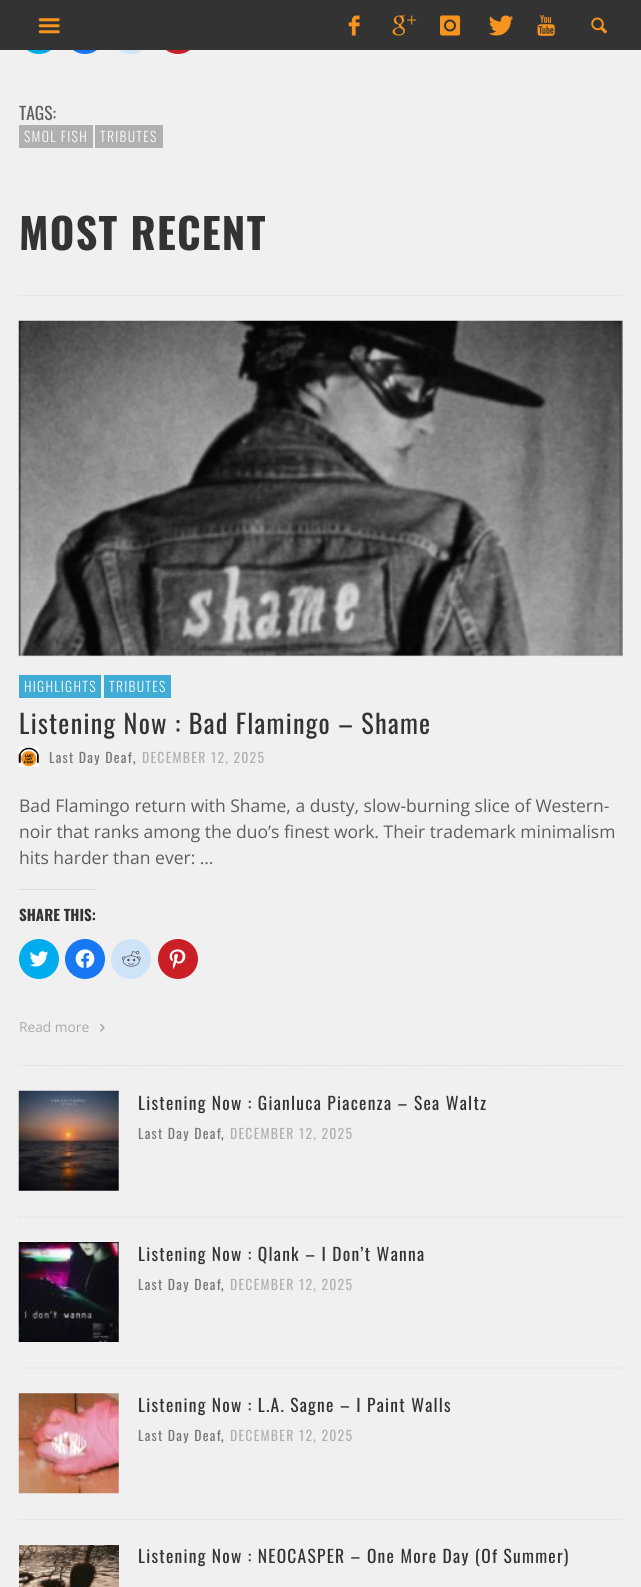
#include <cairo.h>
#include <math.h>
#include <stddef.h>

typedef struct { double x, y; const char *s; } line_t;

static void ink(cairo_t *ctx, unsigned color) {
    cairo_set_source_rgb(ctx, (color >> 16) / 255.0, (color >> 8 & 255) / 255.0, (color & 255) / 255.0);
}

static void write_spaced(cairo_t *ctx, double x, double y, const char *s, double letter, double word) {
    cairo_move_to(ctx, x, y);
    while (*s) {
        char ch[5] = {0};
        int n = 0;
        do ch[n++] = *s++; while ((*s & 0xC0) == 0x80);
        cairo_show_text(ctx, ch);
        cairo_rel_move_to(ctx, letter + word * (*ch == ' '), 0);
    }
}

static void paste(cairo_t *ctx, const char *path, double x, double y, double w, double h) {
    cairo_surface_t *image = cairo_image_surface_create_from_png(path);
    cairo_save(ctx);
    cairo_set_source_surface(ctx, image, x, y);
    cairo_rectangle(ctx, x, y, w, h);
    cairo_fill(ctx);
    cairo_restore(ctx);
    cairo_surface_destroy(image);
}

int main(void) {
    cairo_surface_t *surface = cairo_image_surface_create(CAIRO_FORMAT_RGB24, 641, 1587);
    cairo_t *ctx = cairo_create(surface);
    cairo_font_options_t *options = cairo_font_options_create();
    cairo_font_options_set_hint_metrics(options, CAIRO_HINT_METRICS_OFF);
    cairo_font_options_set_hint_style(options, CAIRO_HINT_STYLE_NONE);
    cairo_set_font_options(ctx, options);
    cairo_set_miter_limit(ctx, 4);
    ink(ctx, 0xF0F0F0);
    cairo_paint(ctx);
    ink(ctx, 0x00ACEE);
    cairo_arc(ctx, 39, 34, 20, 0, 2 * M_PI);
    cairo_fill(ctx);
    ink(ctx, 0x1877F2);
    cairo_arc(ctx, 85, 34, 20, 0, 2 * M_PI);
    cairo_fill(ctx);
    ink(ctx, 0xCEE3F8);
    cairo_arc(ctx, 131, 34, 20, 0, 2 * M_PI);
    cairo_fill(ctx);
    ink(ctx, 0xCA1F27);
    cairo_arc(ctx, 178, 34, 20, 0, 2 * M_PI);
    cairo_fill(ctx);
    ink(ctx, 0x333333);
    cairo_rectangle(ctx, 0, 0, 641, 50);
    cairo_fill(ctx);
    paste(ctx, "media/1.png", 38, 18, 22, 16);
    paste(ctx, "media/2.png", 348, 15, 12, 21);
    paste(ctx, "media/3.png", 392, 15, 25, 21);
    paste(ctx, "media/4.png", 440, 15, 21, 21);
    paste(ctx, "media/5.png", 488, 15, 26, 21);
    paste(ctx, "media/6.png", 537, 15, 18, 21);
    paste(ctx, "media/7.png", 591, 17, 16, 17);
    cairo_select_font_face(ctx, "Oswald", CAIRO_FONT_SLANT_NORMAL, CAIRO_FONT_WEIGHT_NORMAL);
    cairo_set_font_size(ctx, 17.5);
    ink(ctx, 0x5E5E5E);
    cairo_move_to(ctx, 19, 120);
    cairo_show_text(ctx, "TAGS:");
    ink(ctx, 0xB0B0B0);
    cairo_rectangle(ctx, 19, 125, 74, 23);
    cairo_fill(ctx);
    cairo_select_font_face(ctx, "Oswald Light", CAIRO_FONT_SLANT_NORMAL, CAIRO_FONT_WEIGHT_NORMAL);
    cairo_set_font_size(ctx, 13.75);
    ink(ctx, 0xFFFFFF);
    write_spaced(ctx, 24, 142, "SMOL FISH", 1.25, 0);
    ink(ctx, 0xB0B0B0);
    cairo_rectangle(ctx, 95, 125, 68, 23);
    cairo_fill(ctx);
    ink(ctx, 0xFFFFFF);
    write_spaced(ctx, 100, 142, "TRIBUTES", 1.25, 0);
    cairo_select_font_face(ctx, "Oswald", CAIRO_FONT_SLANT_NORMAL, CAIRO_FONT_WEIGHT_BOLD);
    cairo_set_font_size(ctx, 42);
    ink(ctx, 0x333333);
    write_spaced(ctx, 19, 250, "MOST RECENT", 1.25, 0);
    cairo_new_path(ctx);
    cairo_move_to(ctx, 19, 295.5);
    cairo_line_to(ctx, 622.5, 295.5);
    ink(ctx, 0xDDDDDD);
    cairo_set_line_width(ctx, 1.2);
    cairo_set_dash(ctx, (double[]){1.25, 1.25}, 2, 0);
    cairo_stroke(ctx);
    cairo_new_path(ctx);
    cairo_move_to(ctx, 19, 1065.5);
    cairo_line_to(ctx, 622.5, 1065.5);
    cairo_stroke(ctx);
    paste(ctx, "media/8.png", 18, 320, 605, 337);
    ink(ctx, 0x3FACD6);
    cairo_rectangle(ctx, 19, 675, 82, 23);
    cairo_fill(ctx);
    cairo_select_font_face(ctx, "Oswald Light", CAIRO_FONT_SLANT_NORMAL, CAIRO_FONT_WEIGHT_NORMAL);
    cairo_set_font_size(ctx, 13.75);
    ink(ctx, 0xFFFFFF);
    write_spaced(ctx, 24, 692, "HIGHLIGHTS", 1.25, 0);
    ink(ctx, 0x3FACD6);
    cairo_rectangle(ctx, 104, 675, 67, 23);
    cairo_fill(ctx);
    ink(ctx, 0xFFFFFF);
    write_spaced(ctx, 109, 692, "TRIBUTES", 1.25, 0);
    cairo_select_font_face(ctx, "Oswald", CAIRO_FONT_SLANT_NORMAL, CAIRO_FONT_WEIGHT_NORMAL);
    cairo_set_font_size(ctx, 26.25);
    ink(ctx, 0x333333);
    write_spaced(ctx, 19, 734, "Listening Now : Bad Flamingo – Shame", 1.25, 0);
    paste(ctx, "media/9.png", 18, 747, 21, 20);
    cairo_set_font_size(ctx, 13.75);
    ink(ctx, 0x777777);
    write_spaced(ctx, 49, 763, "Last Day Deaf", 1.25, 0);
    ink(ctx, 0x5E5E5E);
    write_spaced(ctx, 133, 763, ",", 1.25, 0);
    ink(ctx, 0xB0B0B0);
    write_spaced(ctx, 142, 763, "DECEMBER 12, 2025", 1.25, 0);
    cairo_select_font_face(ctx, "Open Sans", CAIRO_FONT_SLANT_NORMAL, CAIRO_FONT_WEIGHT_NORMAL);
    cairo_set_font_size(ctx, 17.5);
    ink(ctx, 0x5E5E5E);
    {
        static const line_t items[] = {
            {19, 812, "Bad Flamingo return with Shame, a dusty, slow-burning slice of Western-"},
            {19, 838, "noir that ranks among the duo’s finest work. Their trademark minimalism"},
            {19, 864, "hits harder than ever: …"},
        };
        for (size_t i = 0; i < sizeof items / sizeof *items; i++) {
            cairo_move_to(ctx, items[i].x, items[i].y);
            cairo_show_text(ctx, items[i].s);
        }
    }
    ink(ctx, 0xDCDCDE);
    cairo_rectangle(ctx, 19, 889, 77, 1);
    cairo_fill(ctx);
    cairo_select_font_face(ctx, "Oswald", CAIRO_FONT_SLANT_NORMAL, CAIRO_FONT_WEIGHT_BOLD);
    cairo_set_font_size(ctx, 15);
    ink(ctx, 0x333333);
    cairo_move_to(ctx, 19, 921);
    cairo_show_text(ctx, "SHARE THIS:");
    ink(ctx, 0x00ACEE);
    cairo_new_path(ctx);
    cairo_arc(ctx, 39, 959, 20, 0, 2 * M_PI);
    cairo_fill(ctx);
    paste(ctx, "media/10.png", 29, 951, 20, 16);
    ink(ctx, 0x1877F2);
    cairo_arc(ctx, 85, 959, 20, 0, 2 * M_PI);
    cairo_fill(ctx);
    paste(ctx, "media/11.png", 75, 949, 20, 19);
    ink(ctx, 0xCEE3F8);
    cairo_arc(ctx, 131, 959, 20, 0, 2 * M_PI);
    cairo_fill(ctx);
    paste(ctx, "media/12.png", 121, 950, 20, 17);
    ink(ctx, 0xCA1F27);
    cairo_arc(ctx, 178, 959, 20, 0, 2 * M_PI);
    cairo_fill(ctx);
    paste(ctx, "media/13.png", 169, 949, 17, 20);
    cairo_select_font_face(ctx, "Open Sans", CAIRO_FONT_SLANT_NORMAL, CAIRO_FONT_WEIGHT_NORMAL);
    cairo_set_font_size(ctx, 13.75);
    ink(ctx, 0xAAAAAA);
    cairo_move_to(ctx, 19, 1032);
    cairo_show_text(ctx, "Read more");
    paste(ctx, "media/14.png", 100, 1023, 5, 9);
    cairo_new_path(ctx);
    cairo_move_to(ctx, 19, 1217);
    cairo_line_to(ctx, 622.5, 1217);
    ink(ctx, 0xDDDDDD);
    cairo_stroke(ctx);
    paste(ctx, "media/15.png", 18, 1090, 101, 101);
    cairo_select_font_face(ctx, "Oswald", CAIRO_FONT_SLANT_NORMAL, CAIRO_FONT_WEIGHT_NORMAL);
    cairo_set_font_size(ctx, 17.5);
    ink(ctx, 0x333333);
    write_spaced(ctx, 138, 1110, "Listening Now : Gianluca Piacenza – Sea Waltz", 1.25, 0);
    cairo_set_font_size(ctx, 13.75);
    ink(ctx, 0x777777);
    write_spaced(ctx, 138, 1139, "Last Day Deaf", 1.25, 0);
    ink(ctx, 0x5E5E5E);
    write_spaced(ctx, 221, 1139, ",", 1.25, 0);
    ink(ctx, 0xB0B0B0);
    write_spaced(ctx, 230, 1139, "DECEMBER 12, 2025", 1.25, 0);
    cairo_new_path(ctx);
    cairo_move_to(ctx, 19, 1368);
    cairo_line_to(ctx, 622.5, 1368);
    ink(ctx, 0xDDDDDD);
    cairo_stroke(ctx);
    paste(ctx, "media/16.png", 18, 1242, 101, 100);
    cairo_set_font_size(ctx, 17.5);
    ink(ctx, 0x333333);
    write_spaced(ctx, 138, 1261, "Listening Now : Qlank – I Don’t Wanna", 1.25, 0);
    cairo_set_font_size(ctx, 13.75);
    ink(ctx, 0x777777);
    write_spaced(ctx, 138, 1290, "Last Day Deaf", 1.25, 0);
    ink(ctx, 0x5E5E5E);
    write_spaced(ctx, 221, 1290, ",", 1.25, 0);
    ink(ctx, 0xB0B0B0);
    write_spaced(ctx, 230, 1290, "DECEMBER 12, 2025", 1.25, 0);
    cairo_new_path(ctx);
    cairo_move_to(ctx, 19, 1519.5);
    cairo_line_to(ctx, 622.5, 1519.5);
    ink(ctx, 0xDDDDDD);
    cairo_stroke(ctx);
    paste(ctx, "media/17.png", 18, 1393, 101, 101);
    cairo_set_font_size(ctx, 17.5);
    ink(ctx, 0x333333);
    write_spaced(ctx, 138, 1412, "Listening Now : L.A. Sagne – I Paint Walls", 1.25, 0);
    cairo_set_font_size(ctx, 13.75);
    ink(ctx, 0x777777);
    write_spaced(ctx, 138, 1441, "Last Day Deaf", 1.25, 0);
    ink(ctx, 0x5E5E5E);
    write_spaced(ctx, 221, 1441, ",", 1.25, 0);
    ink(ctx, 0xB0B0B0);
    write_spaced(ctx, 230, 1441, "DECEMBER 12, 2025", 1.25, 0);
    paste(ctx, "media/18.png", 19, 1545, 100, 42);
    cairo_set_font_size(ctx, 17.5);
    ink(ctx, 0x333333);
    write_spaced(ctx, 138, 1563, "Listening Now : NEOCASPER – One More Day (Of Summer)", 1.25, 0);
    cairo_surface_write_to_png(surface, "image.png");
    cairo_font_options_destroy(options);
    cairo_destroy(ctx);
    cairo_surface_destroy(surface);
    return 0;
}
